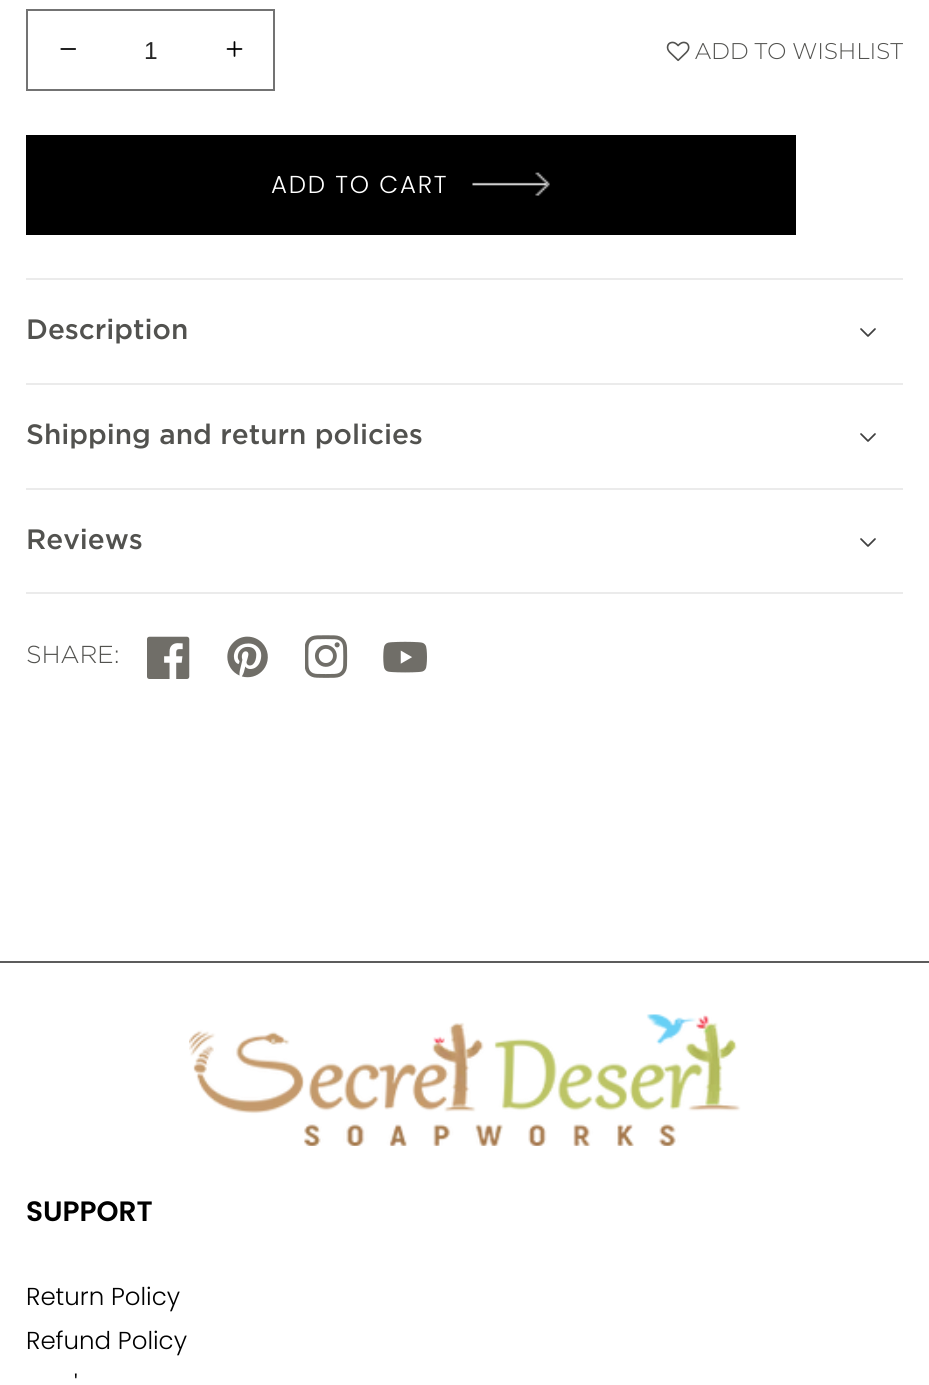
#include <cairo.h>
#include <math.h>
#include <stddef.h>

typedef struct { double x, y; const char *s; } line_t;

static void ink(cairo_t *ctx, unsigned color) {
    cairo_set_source_rgb(ctx, (color >> 16) / 255.0, (color >> 8 & 255) / 255.0, (color & 255) / 255.0);
}

static void write_spaced(cairo_t *ctx, double x, double y, const char *s, double letter, double word) {
    cairo_move_to(ctx, x, y);
    while (*s) {
        char ch[5] = {0};
        int n = 0;
        do ch[n++] = *s++; while ((*s & 0xC0) == 0x80);
        cairo_show_text(ctx, ch);
        cairo_rel_move_to(ctx, letter + word * (*ch == ' '), 0);
    }
}

static void paste(cairo_t *ctx, const char *path, double x, double y, double w, double h) {
    cairo_surface_t *image = cairo_image_surface_create_from_png(path);
    cairo_save(ctx);
    cairo_set_source_surface(ctx, image, x, y);
    cairo_rectangle(ctx, x, y, w, h);
    cairo_fill(ctx);
    cairo_restore(ctx);
    cairo_surface_destroy(image);
}

int main(void) {
    cairo_surface_t *surface = cairo_image_surface_create(CAIRO_FORMAT_RGB24, 929, 1385);
    cairo_t *ctx = cairo_create(surface);
    cairo_font_options_t *options = cairo_font_options_create();
    cairo_font_options_set_hint_metrics(options, CAIRO_HINT_METRICS_OFF);
    cairo_font_options_set_hint_style(options, CAIRO_HINT_STYLE_NONE);
    cairo_set_font_options(ctx, options);
    cairo_set_miter_limit(ctx, 4);
    ink(ctx, 0xFFFFFF);
    cairo_paint(ctx);
    paste(ctx, "media/1.png", 60, 48, 16, 2);
    paste(ctx, "media/2.png", 226, 41, 17, 16);
    cairo_rectangle(ctx, 27, 10, 247, 80);
    ink(ctx, 0x737373);
    cairo_stroke(ctx);
    cairo_select_font_face(ctx, "Liberation Sans", CAIRO_FONT_SLANT_NORMAL, CAIRO_FONT_WEIGHT_NORMAL);
    cairo_set_font_size(ctx, 24.5);
    ink(ctx, 0x262626);
    cairo_move_to(ctx, 144, 59);
    cairo_show_text(ctx, "1");
    paste(ctx, "media/3.png", 666, 41, 24, 21);
    cairo_select_font_face(ctx, "Montserrat Light", CAIRO_FONT_SLANT_NORMAL, CAIRO_FONT_WEIGHT_NORMAL);
    cairo_set_font_size(ctx, 22.75);
    ink(ctx, 0x52524F);
    cairo_move_to(ctx, 695, 59);
    cairo_show_text(ctx, "ADD TO WISHLIST");
    ink(ctx, 0x000000);
    cairo_rectangle(ctx, 26, 135, 770, 100);
    cairo_fill(ctx);
    cairo_select_font_face(ctx, "Poppins Light", CAIRO_FONT_SLANT_NORMAL, CAIRO_FONT_WEIGHT_NORMAL);
    cairo_set_font_size(ctx, 24.5);
    ink(ctx, 0xFFFFFF);
    write_spaced(ctx, 271, 193, "ADD TO CART", 1.75, 0);
    paste(ctx, "media/4.png", 472, 172, 78, 24);
    ink(ctx, 0xEBEBEB);
    cairo_rectangle(ctx, 26, 278, 877, 2);
    cairo_fill(ctx);
    cairo_rectangle(ctx, 26, 383, 877, 2);
    cairo_fill(ctx);
    cairo_select_font_face(ctx, "Gotham Medium", CAIRO_FONT_SLANT_NORMAL, CAIRO_FONT_WEIGHT_NORMAL);
    cairo_set_font_size(ctx, 28);
    ink(ctx, 0x52524F);
    cairo_move_to(ctx, 26, 339);
    cairo_show_text(ctx, "Description");
    paste(ctx, "media/5.png", 860, 328, 16, 9);
    ink(ctx, 0xEBEBEB);
    cairo_rectangle(ctx, 26, 488, 877, 2);
    cairo_fill(ctx);
    ink(ctx, 0x52524F);
    cairo_move_to(ctx, 26, 444);
    cairo_show_text(ctx, "Shipping and return policies");
    paste(ctx, "media/5.png", 860, 433, 16, 9);
    ink(ctx, 0xEBEBEB);
    cairo_rectangle(ctx, 26, 592, 877, 2);
    cairo_fill(ctx);
    ink(ctx, 0x52524F);
    cairo_move_to(ctx, 26, 549);
    cairo_show_text(ctx, "Reviews");
    paste(ctx, "media/5.png", 860, 538, 16, 9);
    cairo_select_font_face(ctx, "Gotham Light", CAIRO_FONT_SLANT_NORMAL, CAIRO_FONT_WEIGHT_NORMAL);
    cairo_set_font_size(ctx, 24.5);
    cairo_move_to(ctx, 26, 663);
    cairo_show_text(ctx, "SHARE:");
    paste(ctx, "media/6.png", 147, 636, 43, 43);
    paste(ctx, "media/7.png", 227, 636, 41, 42);
    paste(ctx, "media/8.png", 305, 635, 43, 43);
    paste(ctx, "media/9.png", 383, 641, 44, 32);
    ink(ctx, 0x5C5C5C);
    cairo_rectangle(ctx, 0, 961, 929, 2);
    cairo_fill(ctx);
    paste(ctx, "media/10.png", 189, 1014, 552, 132);
    cairo_select_font_face(ctx, "Poppins SemiBold", CAIRO_FONT_SLANT_NORMAL, CAIRO_FONT_WEIGHT_NORMAL);
    cairo_set_font_size(ctx, 28);
    ink(ctx, 0x000000);
    cairo_move_to(ctx, 26, 1221);
    cairo_show_text(ctx, "SUPPORT");
    cairo_select_font_face(ctx, "Poppins Light", CAIRO_FONT_SLANT_NORMAL, CAIRO_FONT_WEIGHT_NORMAL);
    cairo_set_font_size(ctx, 24.5);
    {
        static const line_t items[] = {
            {26, 1305, "Return Policy"},
            {26, 1349, "Refund Policy"},
            {74, 1393, "'"},
        };
        for (size_t i = 0; i < sizeof items / sizeof *items; i++) {
            cairo_move_to(ctx, items[i].x, items[i].y);
            cairo_show_text(ctx, items[i].s);
        }
    }
    cairo_surface_write_to_png(surface, "image.png");
    cairo_font_options_destroy(options);
    cairo_destroy(ctx);
    cairo_surface_destroy(surface);
    return 0;
}
